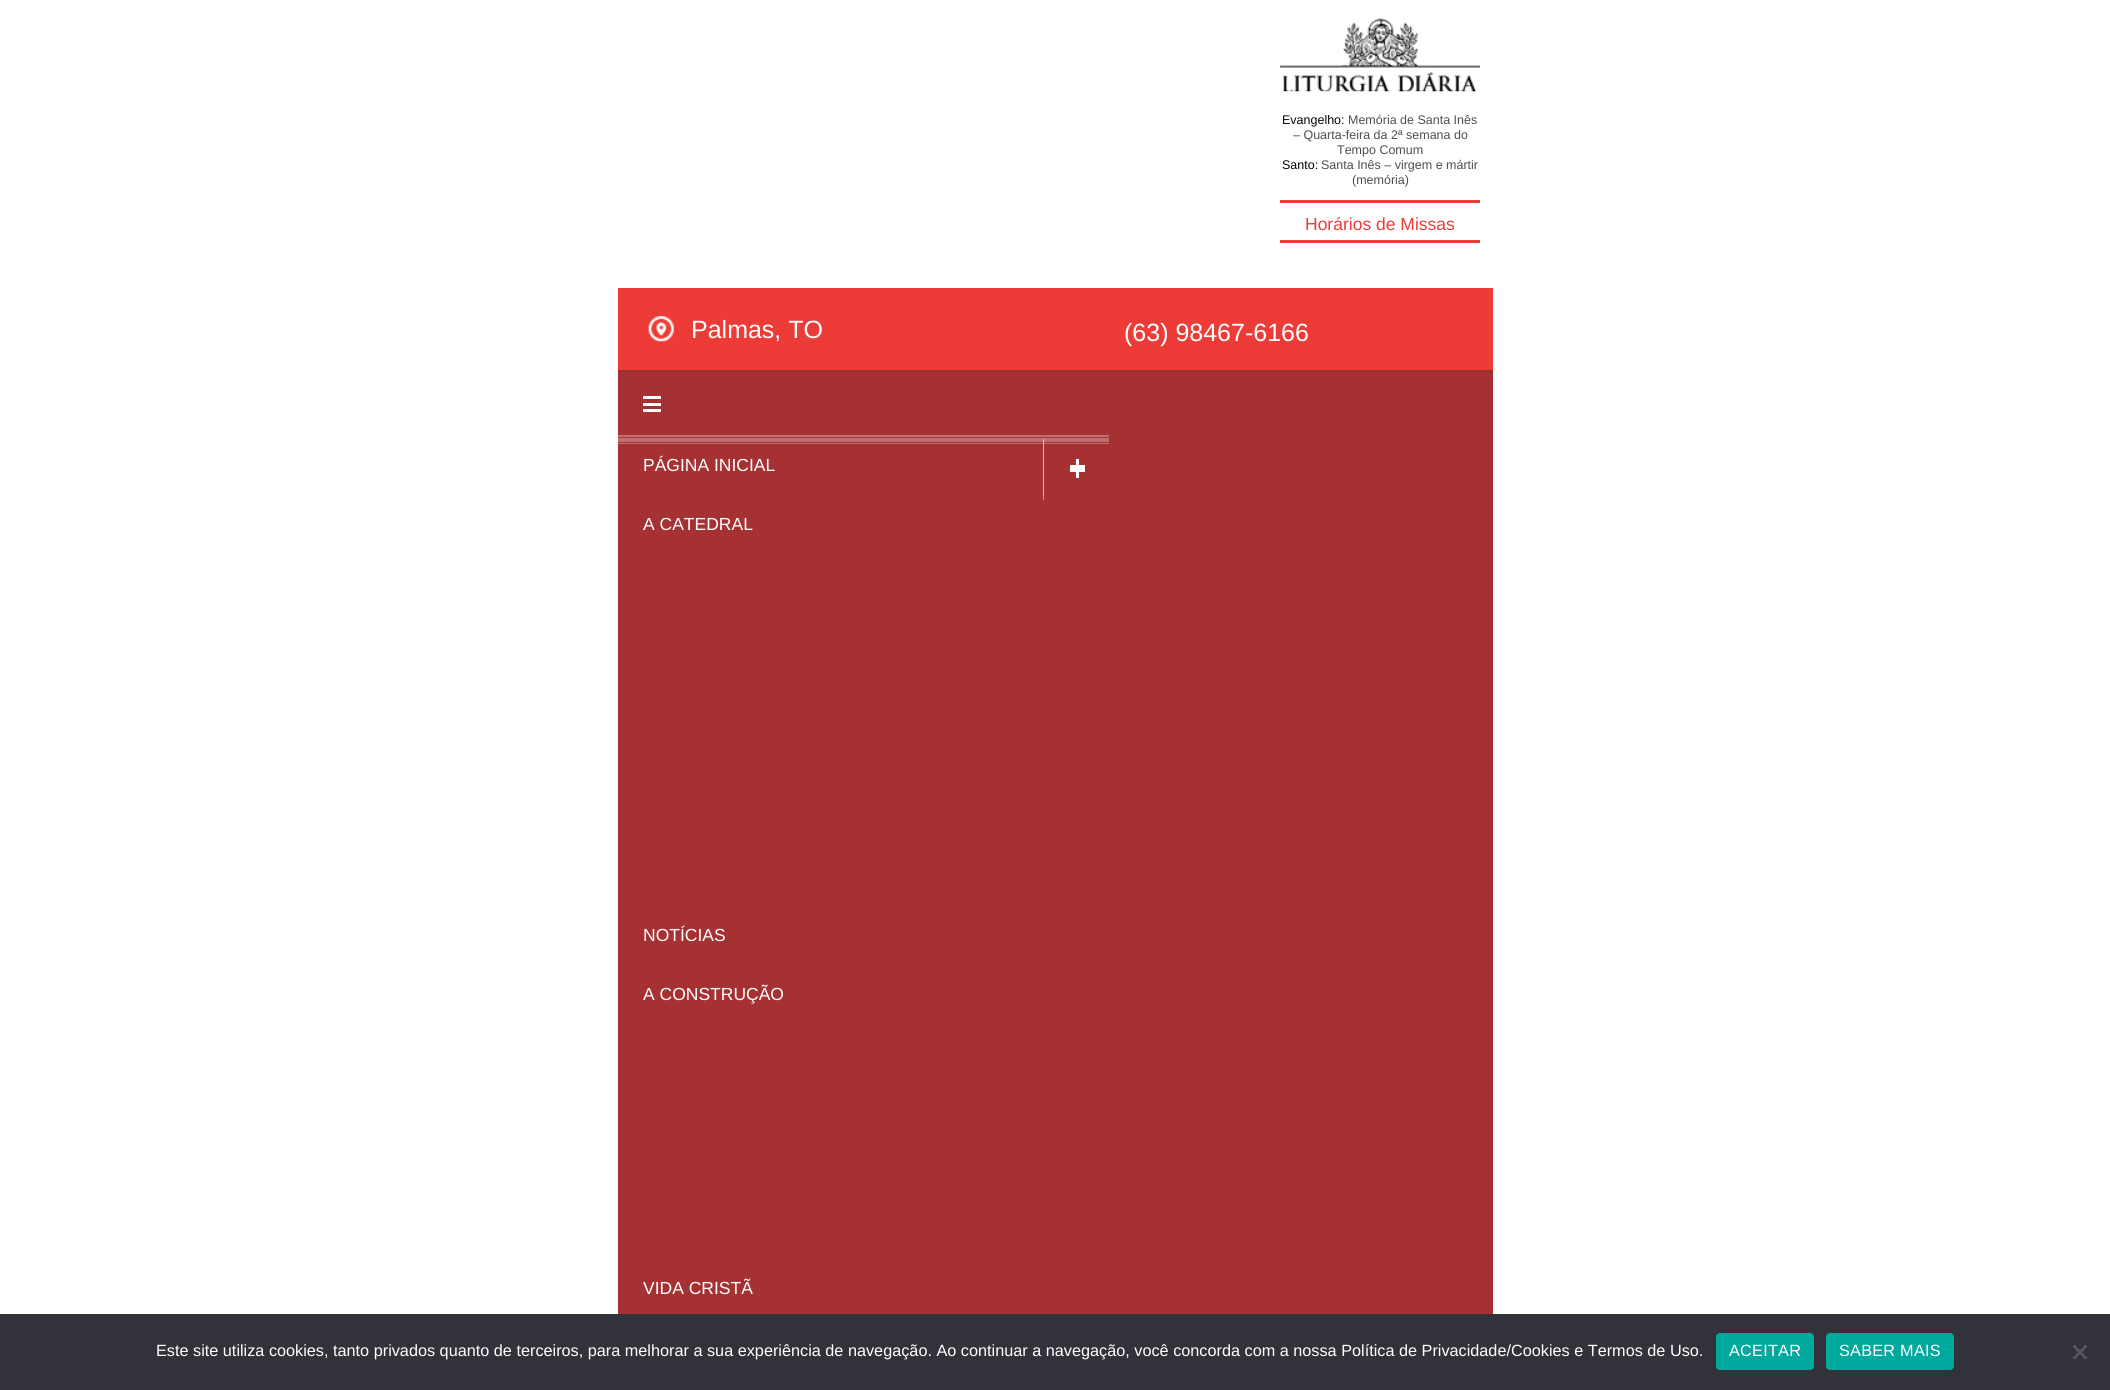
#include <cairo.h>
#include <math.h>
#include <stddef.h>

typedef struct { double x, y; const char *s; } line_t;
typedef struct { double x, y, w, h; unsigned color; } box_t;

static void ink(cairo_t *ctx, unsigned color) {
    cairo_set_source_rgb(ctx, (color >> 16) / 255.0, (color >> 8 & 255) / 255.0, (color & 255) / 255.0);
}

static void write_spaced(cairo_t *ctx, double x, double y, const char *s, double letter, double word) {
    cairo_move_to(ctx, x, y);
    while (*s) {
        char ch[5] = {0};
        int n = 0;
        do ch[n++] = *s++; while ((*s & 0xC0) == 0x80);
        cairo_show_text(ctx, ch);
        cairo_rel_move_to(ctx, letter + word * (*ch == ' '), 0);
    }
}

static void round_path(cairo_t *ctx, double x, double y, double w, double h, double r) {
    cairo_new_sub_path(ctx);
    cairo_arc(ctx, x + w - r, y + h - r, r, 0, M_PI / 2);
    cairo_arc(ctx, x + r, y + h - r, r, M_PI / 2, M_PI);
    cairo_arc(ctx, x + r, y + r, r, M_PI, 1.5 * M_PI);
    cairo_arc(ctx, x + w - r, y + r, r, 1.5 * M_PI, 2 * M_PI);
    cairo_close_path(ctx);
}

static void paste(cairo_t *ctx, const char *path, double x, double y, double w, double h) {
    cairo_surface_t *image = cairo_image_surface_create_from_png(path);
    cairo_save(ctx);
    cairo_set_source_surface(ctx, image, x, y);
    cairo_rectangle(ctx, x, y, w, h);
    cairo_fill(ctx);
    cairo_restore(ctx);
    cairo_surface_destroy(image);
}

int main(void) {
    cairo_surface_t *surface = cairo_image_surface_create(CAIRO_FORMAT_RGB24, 2110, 1390);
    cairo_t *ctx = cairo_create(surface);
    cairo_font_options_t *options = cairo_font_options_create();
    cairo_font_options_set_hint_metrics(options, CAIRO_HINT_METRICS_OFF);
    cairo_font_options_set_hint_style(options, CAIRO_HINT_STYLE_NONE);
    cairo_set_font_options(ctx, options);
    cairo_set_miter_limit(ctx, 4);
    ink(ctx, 0xFFFFFF);
    cairo_paint(ctx);
    paste(ctx, "media/1.png", 1280, 18, 200, 74);
    cairo_select_font_face(ctx, "Liberation Sans", CAIRO_FONT_SLANT_NORMAL, CAIRO_FONT_WEIGHT_NORMAL);
    cairo_set_font_size(ctx, 12.5);
    ink(ctx, 0x060606);
    cairo_move_to(ctx, 1282, 124);
    cairo_show_text(ctx, "Evangelho:");
    ink(ctx, 0x4E4E4E);
    {
        static const line_t items[] = {
            {1348, 124, "Memória de Santa Inês"},
            {1293, 139, "– Quarta-feira da 2ª semana do"},
            {1337, 154, "Tempo Comum"},
        };
        for (size_t i = 0; i < sizeof items / sizeof *items; i++) {
            cairo_move_to(ctx, items[i].x, items[i].y);
            cairo_show_text(ctx, items[i].s);
        }
    }
    ink(ctx, 0x060606);
    cairo_move_to(ctx, 1282, 169);
    cairo_show_text(ctx, "Santo:");
    ink(ctx, 0x4E4E4E);
    cairo_move_to(ctx, 1321, 169);
    cairo_show_text(ctx, "Santa Inês – virgem e mártir");
    cairo_move_to(ctx, 1352, 184);
    cairo_show_text(ctx, "(memória)");
    ink(ctx, 0xED3C37);
    cairo_rectangle(ctx, 1280, 200, 200, 3);
    cairo_fill(ctx);
    cairo_rectangle(ctx, 1280, 240, 200, 3);
    cairo_fill(ctx);
    cairo_set_font_size(ctx, 17.5);
    cairo_move_to(ctx, 1305, 230);
    cairo_show_text(ctx, "Horários de Missas");
    cairo_rectangle(ctx, 618, 288, 875, 82);
    cairo_fill(ctx);
    paste(ctx, "media/2.png", 648, 316, 26, 26);
    cairo_set_font_size(ctx, 25);
    ink(ctx, 0xFFFFFF);
    cairo_move_to(ctx, 691, 338);
    cairo_show_text(ctx, "Palmas, TO");
    cairo_move_to(ctx, 1124, 341);
    cairo_show_text(ctx, "(63) 98467-6166");
    {
        static const box_t items[] = {
            {618, 373, 875, 941, 0xA63133},
            {1043, 499, 1, 1, 0xC16F70},
            {1043, 496, 1, 3, 0xD49A9B},
            {1043, 441, 1, 55, 0xE1B8B9},
            {618, 370, 875, 3, 0x9E2F30},
            {643, 396, 18, 3, 0xFFFFFF},
            {643, 403, 18, 3, 0xFFFFFF},
            {643, 409, 18, 3, 0xFFFFFF},
            {618, 438, 491, 4, 0xC16F70},
            {1043, 441, 1, 1, 0xEACDCE},
            {618, 443, 491, 1, 0xC16F70},
            {1043, 443, 1, 1, 0xEACDCE},
            {618, 435, 491, 2, 0xC16F70},
        };
        for (size_t i = 0; i < sizeof items / sizeof *items; i++) {
            ink(ctx, items[i].color);
            cairo_rectangle(ctx, items[i].x, items[i].y, items[i].w, items[i].h);
            cairo_fill(ctx);
        }
    }
    cairo_set_font_size(ctx, 17.5);
    ink(ctx, 0xFFFFFF);
    cairo_move_to(ctx, 643, 471);
    cairo_show_text(ctx, "PÁGINA INICIAL");
    cairo_rectangle(ctx, 1070, 465, 15, 7);
    cairo_fill(ctx);
    cairo_rectangle(ctx, 1076, 459, 3, 19);
    cairo_fill(ctx);
    cairo_move_to(ctx, 643, 530);
    cairo_show_text(ctx, "A CATEDRAL");
    ink(ctx, 0xD49A9B);
    cairo_rectangle(ctx, 1043, 438, 1, 2);
    cairo_fill(ctx);
    ink(ctx, 0xFFFFFF);
    cairo_move_to(ctx, 643, 941);
    cairo_show_text(ctx, "NOTÍCIAS");
    cairo_move_to(ctx, 643, 1000);
    cairo_show_text(ctx, "A CONSTRUÇÃO");
    ink(ctx, 0xE1B8B9);
    cairo_rectangle(ctx, 1043, 440, 1, 1);
    cairo_fill(ctx);
    ink(ctx, 0xFFFFFF);
    cairo_move_to(ctx, 643, 1294);
    cairo_show_text(ctx, "VIDA CRISTÃ");
    ink(ctx, 0x32323A);
    cairo_rectangle(ctx, 0, 1314, 2110, 76);
    cairo_fill(ctx);
    cairo_set_font_size(ctx, 16.25);
    ink(ctx, 0xFFFFFF);
    cairo_move_to(ctx, 156, 1356);
    cairo_show_text(ctx, "Este site utiliza cookies, tanto privados quanto de terceiros, para melhorar a sua experiência de navegação. Ao continuar a navegação, você concorda com a nossa Política de Privacidade/Cookies e Termos de Uso.");
    ink(ctx, 0x00A99D);
    round_path(ctx, 1716, 1333, 98, 37, 4);
    cairo_fill(ctx);
    ink(ctx, 0xFFFFFF);
    write_spaced(ctx, 1729, 1356, "ACEITAR", 0.25, 0);
    ink(ctx, 0x00A99D);
    round_path(ctx, 1826, 1333, 128, 37, 4);
    cairo_fill(ctx);
    ink(ctx, 0xFFFFFF);
    write_spaced(ctx, 1839, 1356, "SABER MAIS", 0.25, 0);
    ink(ctx, 0x59595D);
    cairo_new_path(ctx);
    cairo_move_to(ctx, 2085.5, 1344.5);
    cairo_line_to(ctx, 2087.5, 1346.5);
    cairo_line_to(ctx, 2074.5, 1359.5);
    cairo_line_to(ctx, 2072.5, 1358);
    cairo_close_path(ctx);
    cairo_fill(ctx);
    cairo_new_path(ctx);
    cairo_move_to(ctx, 2072.5, 1346.5);
    cairo_line_to(ctx, 2074.5, 1344.5);
    cairo_line_to(ctx, 2087.5, 1358);
    cairo_line_to(ctx, 2085.5, 1359.5);
    cairo_close_path(ctx);
    cairo_fill(ctx);
    cairo_surface_write_to_png(surface, "image.png");
    cairo_font_options_destroy(options);
    cairo_destroy(ctx);
    cairo_surface_destroy(surface);
    return 0;
}
